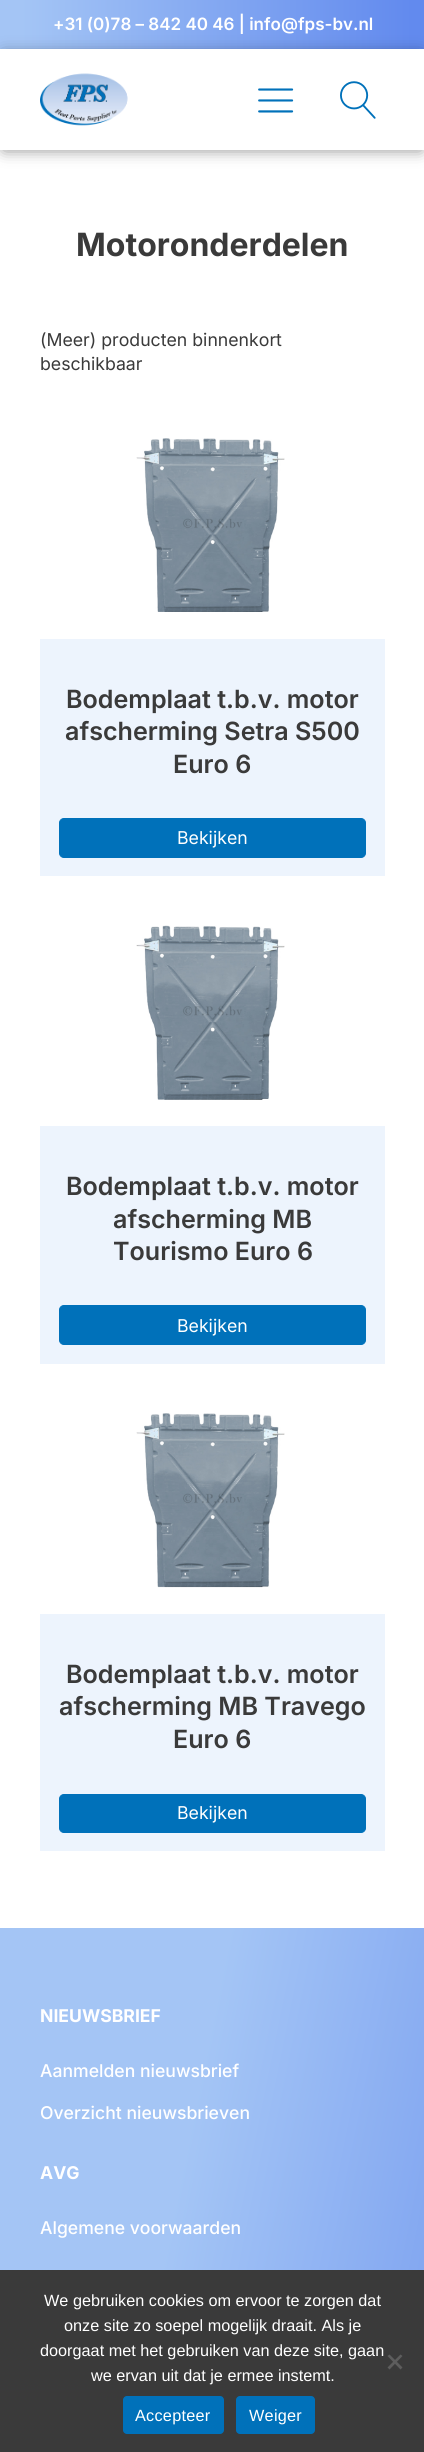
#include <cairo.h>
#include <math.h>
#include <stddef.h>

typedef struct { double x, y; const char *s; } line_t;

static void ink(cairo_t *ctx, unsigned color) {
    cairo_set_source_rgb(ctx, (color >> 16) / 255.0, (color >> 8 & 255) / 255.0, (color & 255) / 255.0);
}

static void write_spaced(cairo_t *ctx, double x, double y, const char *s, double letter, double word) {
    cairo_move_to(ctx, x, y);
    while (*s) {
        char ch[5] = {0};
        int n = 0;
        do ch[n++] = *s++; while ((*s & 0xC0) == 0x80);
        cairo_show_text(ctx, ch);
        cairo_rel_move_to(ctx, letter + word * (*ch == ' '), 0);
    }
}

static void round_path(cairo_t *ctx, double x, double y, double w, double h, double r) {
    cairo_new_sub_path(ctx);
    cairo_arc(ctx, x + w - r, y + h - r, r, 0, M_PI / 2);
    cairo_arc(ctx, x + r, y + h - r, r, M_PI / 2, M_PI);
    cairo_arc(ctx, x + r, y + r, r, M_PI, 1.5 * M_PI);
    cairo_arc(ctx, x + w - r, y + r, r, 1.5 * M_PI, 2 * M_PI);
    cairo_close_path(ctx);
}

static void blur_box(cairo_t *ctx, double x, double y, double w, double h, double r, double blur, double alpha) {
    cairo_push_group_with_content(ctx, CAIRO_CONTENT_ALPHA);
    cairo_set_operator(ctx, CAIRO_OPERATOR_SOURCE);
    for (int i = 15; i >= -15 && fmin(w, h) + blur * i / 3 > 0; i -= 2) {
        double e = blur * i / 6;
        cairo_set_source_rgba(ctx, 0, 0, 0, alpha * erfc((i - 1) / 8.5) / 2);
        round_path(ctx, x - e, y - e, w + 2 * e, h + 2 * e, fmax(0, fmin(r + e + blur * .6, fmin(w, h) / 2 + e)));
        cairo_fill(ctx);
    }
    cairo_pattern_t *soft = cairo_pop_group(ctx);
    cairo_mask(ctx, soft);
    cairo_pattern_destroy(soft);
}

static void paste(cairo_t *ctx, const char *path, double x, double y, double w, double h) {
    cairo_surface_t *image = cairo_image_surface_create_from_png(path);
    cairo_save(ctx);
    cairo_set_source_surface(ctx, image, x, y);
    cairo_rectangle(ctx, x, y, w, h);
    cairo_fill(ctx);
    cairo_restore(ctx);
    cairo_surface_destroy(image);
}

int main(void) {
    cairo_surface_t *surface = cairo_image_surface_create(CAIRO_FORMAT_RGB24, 424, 2452);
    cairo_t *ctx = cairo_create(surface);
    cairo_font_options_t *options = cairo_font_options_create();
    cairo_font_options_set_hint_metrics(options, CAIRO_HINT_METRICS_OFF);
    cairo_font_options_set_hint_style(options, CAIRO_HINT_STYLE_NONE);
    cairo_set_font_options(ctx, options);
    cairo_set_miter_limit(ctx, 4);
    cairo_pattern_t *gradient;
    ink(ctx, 0xFFFFFF);
    cairo_paint(ctx);
    gradient = cairo_pattern_create_linear(0, 24, 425, 25);
    cairo_pattern_add_color_stop_rgba(gradient, 0.05, 0.643, 0.773, 0.961, 1);
    cairo_pattern_add_color_stop_rgba(gradient, 0.97, 0.384, 0.541, 0.933, 1);
    cairo_set_source(ctx, gradient);
    cairo_pattern_destroy(gradient);
    cairo_rectangle(ctx, 0, 0, 424, 49);
    cairo_fill(ctx);
    cairo_select_font_face(ctx, "Inter SemiBold", CAIRO_FONT_SLANT_NORMAL, CAIRO_FONT_WEIGHT_NORMAL);
    cairo_set_font_size(ctx, 17);
    ink(ctx, 0xFFFFFF);
    cairo_move_to(ctx, 53, 30);
    cairo_show_text(ctx, "+31 (0)78 – 842 40 46 | info@fps-bv.nl");
    ink(ctx, 0x000000);
    blur_box(ctx, 4, 55, 417, 94, 0, 8, 0.5);
    ink(ctx, 0xFFFFFF);
    cairo_rectangle(ctx, 0, 49, 424, 101);
    cairo_fill(ctx);
    paste(ctx, "media/1.png", 40, 73, 88, 53);
    paste(ctx, "media/2.png", 258, 88, 36, 25);
    paste(ctx, "media/3.png", 340, 81, 36, 38);
    cairo_select_font_face(ctx, "Inter", CAIRO_FONT_SLANT_NORMAL, CAIRO_FONT_WEIGHT_BOLD);
    cairo_set_font_size(ctx, 32);
    ink(ctx, 0x3A3A3A);
    cairo_move_to(ctx, 76, 256);
    cairo_show_text(ctx, "Motoronderdelen");
    cairo_select_font_face(ctx, "Inter", CAIRO_FONT_SLANT_NORMAL, CAIRO_FONT_WEIGHT_NORMAL);
    cairo_set_font_size(ctx, 17.7);
    cairo_move_to(ctx, 40, 346);
    cairo_show_text(ctx, "(Meer) producten binnenkort");
    cairo_move_to(ctx, 40, 370);
    cairo_show_text(ctx, "beschikbaar");
    paste(ctx, "media/4.png", 136, 438, 149, 174);
    ink(ctx, 0xEDF4FD);
    cairo_rectangle(ctx, 40, 639, 345, 237);
    cairo_fill(ctx);
    cairo_select_font_face(ctx, "Inter SemiBold", CAIRO_FONT_SLANT_NORMAL, CAIRO_FONT_WEIGHT_NORMAL);
    cairo_set_font_size(ctx, 25.1);
    ink(ctx, 0x3A3A3A);
    {
        static const line_t items[] = {
            {66, 708, "Bodemplaat t.b.v. motor"},
            {65, 740, "afscherming Setra S500"},
            {173, 773, "Euro 6"},
        };
        for (size_t i = 0; i < sizeof items / sizeof *items; i++) {
            cairo_move_to(ctx, items[i].x, items[i].y);
            cairo_show_text(ctx, items[i].s);
        }
    }
    ink(ctx, 0x0071BA);
    round_path(ctx, 59.5, 818.5, 306, 39, 4.5);
    cairo_fill_preserve(ctx);
    cairo_set_line_width(ctx, 1);
    cairo_stroke(ctx);
    cairo_select_font_face(ctx, "Inter", CAIRO_FONT_SLANT_NORMAL, CAIRO_FONT_WEIGHT_NORMAL);
    cairo_set_font_size(ctx, 17.7);
    ink(ctx, 0xFFFFFF);
    cairo_move_to(ctx, 177, 844);
    cairo_show_text(ctx, "Bekijken");
    paste(ctx, "media/5.png", 136, 925, 149, 175);
    ink(ctx, 0xEDF4FD);
    cairo_rectangle(ctx, 40, 1126, 345, 238);
    cairo_fill(ctx);
    cairo_select_font_face(ctx, "Inter SemiBold", CAIRO_FONT_SLANT_NORMAL, CAIRO_FONT_WEIGHT_NORMAL);
    cairo_set_font_size(ctx, 25.1);
    ink(ctx, 0x3A3A3A);
    {
        static const line_t items[] = {
            {66, 1195, "Bodemplaat t.b.v. motor"},
            {113, 1228, "afscherming MB"},
            {113, 1260, "Tourismo Euro 6"},
        };
        for (size_t i = 0; i < sizeof items / sizeof *items; i++) {
            cairo_move_to(ctx, items[i].x, items[i].y);
            cairo_show_text(ctx, items[i].s);
        }
    }
    ink(ctx, 0x0071BA);
    round_path(ctx, 59.5, 1305.5, 306, 39, 4.5);
    cairo_fill_preserve(ctx);
    cairo_stroke(ctx);
    cairo_select_font_face(ctx, "Inter", CAIRO_FONT_SLANT_NORMAL, CAIRO_FONT_WEIGHT_NORMAL);
    cairo_set_font_size(ctx, 17.7);
    ink(ctx, 0xFFFFFF);
    cairo_move_to(ctx, 177, 1332);
    cairo_show_text(ctx, "Bekijken");
    paste(ctx, "media/6.png", 136, 1413, 149, 175);
    ink(ctx, 0xEDF4FD);
    cairo_rectangle(ctx, 40, 1614, 345, 237);
    cairo_fill(ctx);
    cairo_select_font_face(ctx, "Inter SemiBold", CAIRO_FONT_SLANT_NORMAL, CAIRO_FONT_WEIGHT_NORMAL);
    cairo_set_font_size(ctx, 25.1);
    ink(ctx, 0x3A3A3A);
    {
        static const line_t items[] = {
            {66, 1683, "Bodemplaat t.b.v. motor"},
            {59, 1715, "afscherming MB Travego"},
            {173, 1748, "Euro 6"},
        };
        for (size_t i = 0; i < sizeof items / sizeof *items; i++) {
            cairo_move_to(ctx, items[i].x, items[i].y);
            cairo_show_text(ctx, items[i].s);
        }
    }
    ink(ctx, 0x0071BA);
    round_path(ctx, 59.5, 1794.5, 306, 38, 4.5);
    cairo_fill_preserve(ctx);
    cairo_stroke(ctx);
    cairo_select_font_face(ctx, "Inter", CAIRO_FONT_SLANT_NORMAL, CAIRO_FONT_WEIGHT_NORMAL);
    cairo_set_font_size(ctx, 17.7);
    ink(ctx, 0xFFFFFF);
    cairo_move_to(ctx, 177, 1819);
    cairo_show_text(ctx, "Bekijken");
    gradient = cairo_pattern_create_linear(-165, 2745, 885, 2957);
    cairo_pattern_add_color_stop_rgba(gradient, 0.21, 0.643, 0.773, 0.961, 1);
    cairo_pattern_add_color_stop_rgba(gradient, 1, 0.227, 0.396, 0.91, 1);
    cairo_set_source(ctx, gradient);
    cairo_pattern_destroy(gradient);
    cairo_rectangle(ctx, 0, 1928, 424, 342);
    cairo_fill(ctx);
    cairo_select_font_face(ctx, "Inter", CAIRO_FONT_SLANT_NORMAL, CAIRO_FONT_WEIGHT_BOLD);
    cairo_set_font_size(ctx, 17.6);
    ink(ctx, 0xFFFFFF);
    cairo_move_to(ctx, 40, 2022);
    cairo_show_text(ctx, "NIEUWSBRIEF");
    cairo_select_font_face(ctx, "Inter Medium", CAIRO_FONT_SLANT_NORMAL, CAIRO_FONT_WEIGHT_NORMAL);
    cairo_move_to(ctx, 40, 2077);
    cairo_show_text(ctx, "Aanmelden nieuwsbrief");
    cairo_move_to(ctx, 40, 2119);
    cairo_show_text(ctx, "Overzicht nieuwsbrieven");
    cairo_select_font_face(ctx, "Inter", CAIRO_FONT_SLANT_NORMAL, CAIRO_FONT_WEIGHT_BOLD);
    cairo_move_to(ctx, 40, 2179);
    cairo_show_text(ctx, "AVG");
    cairo_select_font_face(ctx, "Inter Medium", CAIRO_FONT_SLANT_NORMAL, CAIRO_FONT_WEIGHT_NORMAL);
    cairo_move_to(ctx, 40, 2234);
    cairo_show_text(ctx, "Algemene voorwaarden");
    ink(ctx, 0x3A3A3A);
    cairo_rectangle(ctx, 0, 2270, 424, 182);
    cairo_fill(ctx);
    cairo_select_font_face(ctx, "Liberation Sans", CAIRO_FONT_SLANT_NORMAL, CAIRO_FONT_WEIGHT_NORMAL);
    cairo_set_font_size(ctx, 16.25);
    ink(ctx, 0xFFFFFF);
    {
        static const line_t items[] = {
            {44, 2306, "We gebruiken cookies om ervoor te zorgen dat"},
            {64, 2331, "onze site zo soepel mogelijk draait. Als je"},
            {40, 2356, "doorgaat met het gebruiken van deze site, gaan"},
            {91, 2381, "we ervan uit dat je ermee instemt."},
        };
        for (size_t i = 0; i < sizeof items / sizeof *items; i++) {
            cairo_move_to(ctx, items[i].x, items[i].y);
            cairo_show_text(ctx, items[i].s);
        }
    }
    ink(ctx, 0x5D5D5D);
    cairo_new_path(ctx);
    cairo_move_to(ctx, 400.5, 2354.5);
    cairo_line_to(ctx, 402.5, 2356);
    cairo_line_to(ctx, 389.5, 2369.5);
    cairo_line_to(ctx, 387.5, 2367.5);
    cairo_close_path(ctx);
    cairo_fill(ctx);
    cairo_new_path(ctx);
    cairo_move_to(ctx, 387.5, 2356);
    cairo_line_to(ctx, 389.5, 2354.5);
    cairo_line_to(ctx, 402.5, 2367.5);
    cairo_line_to(ctx, 400.5, 2369.5);
    cairo_close_path(ctx);
    cairo_fill(ctx);
    ink(ctx, 0x0071BA);
    round_path(ctx, 123, 2396, 101, 38, 4);
    cairo_fill(ctx);
    ink(ctx, 0xFFFFFF);
    write_spaced(ctx, 135, 2421, "Accepteer", 0.25, 0);
    ink(ctx, 0x0071BA);
    round_path(ctx, 236, 2396, 79, 38, 4);
    cairo_fill(ctx);
    ink(ctx, 0xFFFFFF);
    write_spaced(ctx, 249, 2421, "Weiger", 0.25, 0);
    cairo_surface_write_to_png(surface, "image.png");
    cairo_font_options_destroy(options);
    cairo_destroy(ctx);
    cairo_surface_destroy(surface);
    return 0;
}
